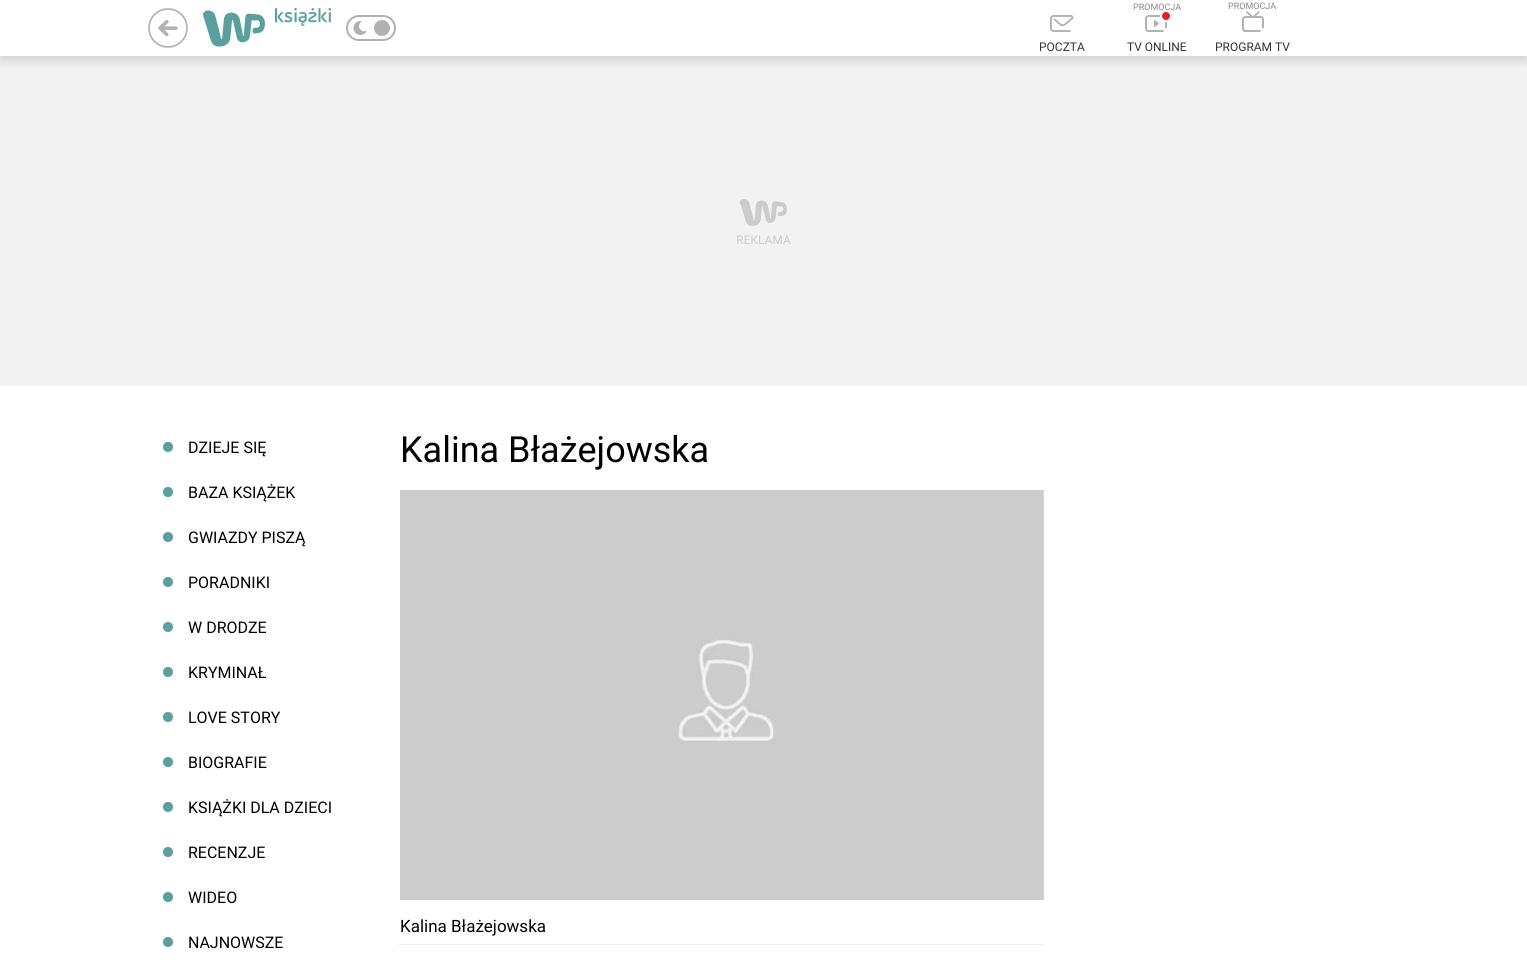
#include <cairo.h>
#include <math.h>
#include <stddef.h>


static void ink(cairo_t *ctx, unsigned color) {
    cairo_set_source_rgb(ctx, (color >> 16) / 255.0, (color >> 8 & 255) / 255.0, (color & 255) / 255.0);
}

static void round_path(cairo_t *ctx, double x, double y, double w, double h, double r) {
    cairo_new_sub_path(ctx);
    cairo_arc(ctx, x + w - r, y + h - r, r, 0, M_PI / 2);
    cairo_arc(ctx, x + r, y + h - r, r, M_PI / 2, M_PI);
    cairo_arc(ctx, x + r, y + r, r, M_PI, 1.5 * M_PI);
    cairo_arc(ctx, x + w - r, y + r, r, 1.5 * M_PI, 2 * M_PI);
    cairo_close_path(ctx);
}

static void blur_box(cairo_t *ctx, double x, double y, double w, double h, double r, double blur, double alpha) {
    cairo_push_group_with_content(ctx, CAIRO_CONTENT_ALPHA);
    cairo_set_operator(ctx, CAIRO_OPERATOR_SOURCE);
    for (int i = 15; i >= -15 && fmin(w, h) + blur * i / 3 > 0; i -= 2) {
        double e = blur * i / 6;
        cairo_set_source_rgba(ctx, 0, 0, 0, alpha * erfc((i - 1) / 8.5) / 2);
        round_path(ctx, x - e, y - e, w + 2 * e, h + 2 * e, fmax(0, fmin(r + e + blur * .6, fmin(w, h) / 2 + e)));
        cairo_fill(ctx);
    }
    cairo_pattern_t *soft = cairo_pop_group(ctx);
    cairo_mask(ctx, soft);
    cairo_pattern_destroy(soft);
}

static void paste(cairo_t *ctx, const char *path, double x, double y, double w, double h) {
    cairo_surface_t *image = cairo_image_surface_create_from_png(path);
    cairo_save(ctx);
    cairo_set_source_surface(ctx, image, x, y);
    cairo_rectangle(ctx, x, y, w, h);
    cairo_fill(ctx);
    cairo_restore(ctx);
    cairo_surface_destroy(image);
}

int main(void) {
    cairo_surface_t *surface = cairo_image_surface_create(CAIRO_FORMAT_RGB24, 1527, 960);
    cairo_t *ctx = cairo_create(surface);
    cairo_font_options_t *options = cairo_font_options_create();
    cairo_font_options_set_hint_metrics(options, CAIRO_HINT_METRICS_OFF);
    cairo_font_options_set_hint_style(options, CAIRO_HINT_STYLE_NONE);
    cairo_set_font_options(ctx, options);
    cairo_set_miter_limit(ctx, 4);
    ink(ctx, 0xFFFFFF);
    cairo_paint(ctx);
    ink(ctx, 0xF2F2F2);
    cairo_rectangle(ctx, 0, 56, 1527, 330);
    cairo_fill(ctx);
    cairo_save(ctx);
    cairo_rectangle(ctx, 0, 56, 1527, 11);
    cairo_clip(ctx);
    ink(ctx, 0x000000);
    blur_box(ctx, 0, 4, 1527, 56, 0, 6, 0.15);
    cairo_restore(ctx);
    paste(ctx, "media/1.png", 148, 8, 40, 40);
    paste(ctx, "media/2.png", 203, 10, 62, 37);
    paste(ctx, "media/3.png", 275, 8, 56, 18);
    round_path(ctx, 347, 16, 48, 24, 12);
    ink(ctx, 0xB2B0B0);
    cairo_stroke(ctx);
    paste(ctx, "media/4.png", 353, 21, 14, 14);
    cairo_arc(ctx, 382, 28, 8, 0, 2 * M_PI);
    cairo_fill(ctx);
    paste(ctx, "media/5.png", 1050, 15, 24, 17);
    cairo_select_font_face(ctx, "Roboto", CAIRO_FONT_SLANT_NORMAL, CAIRO_FONT_WEIGHT_NORMAL);
    cairo_set_font_size(ctx, 12);
    ink(ctx, 0x333333);
    cairo_move_to(ctx, 1039, 51);
    cairo_show_text(ctx, "POCZTA");
    cairo_set_font_size(ctx, 9);
    ink(ctx, 0x888888);
    cairo_move_to(ctx, 1133, 10);
    cairo_show_text(ctx, "PROMOCJA");
    paste(ctx, "media/6.png", 1145, 12, 25, 20);
    cairo_set_font_size(ctx, 12);
    ink(ctx, 0x333333);
    cairo_move_to(ctx, 1127, 51);
    cairo_show_text(ctx, "TV ONLINE");
    cairo_set_font_size(ctx, 9);
    ink(ctx, 0x888888);
    cairo_move_to(ctx, 1228, 9);
    cairo_show_text(ctx, "PROMOCJA");
    paste(ctx, "media/7.png", 1242, 11, 22, 21);
    cairo_set_font_size(ctx, 12);
    ink(ctx, 0x333333);
    cairo_move_to(ctx, 1215, 51);
    cairo_show_text(ctx, "PROGRAM TV");
    paste(ctx, "media/8.png", 737, 199, 54, 45);
    ink(ctx, 0x59A19E);
    cairo_arc(ctx, 168, 447, 5, 0, 2 * M_PI);
    cairo_fill(ctx);
    cairo_set_font_size(ctx, 16);
    ink(ctx, 0x000000);
    cairo_move_to(ctx, 188, 453);
    cairo_show_text(ctx, "DZIEJE SIĘ");
    ink(ctx, 0x59A19E);
    cairo_new_path(ctx);
    cairo_arc(ctx, 168, 492, 5, 0, 2 * M_PI);
    cairo_fill(ctx);
    ink(ctx, 0x000000);
    cairo_move_to(ctx, 188, 498);
    cairo_show_text(ctx, "BAZA KSIĄŻEK");
    ink(ctx, 0x59A19E);
    cairo_new_path(ctx);
    cairo_arc(ctx, 168, 537, 5, 0, 2 * M_PI);
    cairo_fill(ctx);
    ink(ctx, 0x000000);
    cairo_move_to(ctx, 188, 543);
    cairo_show_text(ctx, "GWIAZDY PISZĄ");
    ink(ctx, 0x59A19E);
    cairo_new_path(ctx);
    cairo_arc(ctx, 168, 582, 5, 0, 2 * M_PI);
    cairo_fill(ctx);
    ink(ctx, 0x000000);
    cairo_move_to(ctx, 188, 588);
    cairo_show_text(ctx, "PORADNIKI");
    ink(ctx, 0x59A19E);
    cairo_new_path(ctx);
    cairo_arc(ctx, 168, 627, 5, 0, 2 * M_PI);
    cairo_fill(ctx);
    ink(ctx, 0x000000);
    cairo_move_to(ctx, 188, 633);
    cairo_show_text(ctx, "W DRODZE");
    ink(ctx, 0x59A19E);
    cairo_new_path(ctx);
    cairo_arc(ctx, 168, 672, 5, 0, 2 * M_PI);
    cairo_fill(ctx);
    ink(ctx, 0x000000);
    cairo_move_to(ctx, 188, 678);
    cairo_show_text(ctx, "KRYMINAŁ");
    ink(ctx, 0x59A19E);
    cairo_new_path(ctx);
    cairo_arc(ctx, 168, 717, 5, 0, 2 * M_PI);
    cairo_fill(ctx);
    ink(ctx, 0x000000);
    cairo_move_to(ctx, 188, 723);
    cairo_show_text(ctx, "LOVE STORY");
    ink(ctx, 0x59A19E);
    cairo_new_path(ctx);
    cairo_arc(ctx, 168, 762, 5, 0, 2 * M_PI);
    cairo_fill(ctx);
    ink(ctx, 0x000000);
    cairo_move_to(ctx, 188, 768);
    cairo_show_text(ctx, "BIOGRAFIE");
    ink(ctx, 0x59A19E);
    cairo_new_path(ctx);
    cairo_arc(ctx, 168, 807, 5, 0, 2 * M_PI);
    cairo_fill(ctx);
    ink(ctx, 0x000000);
    cairo_move_to(ctx, 188, 813);
    cairo_show_text(ctx, "KSIĄŻKI DLA DZIECI");
    ink(ctx, 0x59A19E);
    cairo_new_path(ctx);
    cairo_arc(ctx, 168, 852, 5, 0, 2 * M_PI);
    cairo_fill(ctx);
    ink(ctx, 0x000000);
    cairo_move_to(ctx, 188, 858);
    cairo_show_text(ctx, "RECENZJE");
    ink(ctx, 0x59A19E);
    cairo_new_path(ctx);
    cairo_arc(ctx, 168, 897, 5, 0, 2 * M_PI);
    cairo_fill(ctx);
    ink(ctx, 0x000000);
    cairo_move_to(ctx, 188, 903);
    cairo_show_text(ctx, "WIDEO");
    ink(ctx, 0x59A19E);
    cairo_new_path(ctx);
    cairo_arc(ctx, 168, 942, 5, 0, 2 * M_PI);
    cairo_fill(ctx);
    ink(ctx, 0x000000);
    cairo_move_to(ctx, 188, 948);
    cairo_show_text(ctx, "NAJNOWSZE");
    cairo_set_font_size(ctx, 36);
    cairo_move_to(ctx, 400, 462);
    cairo_show_text(ctx, "Kalina Błażejowska");
    paste(ctx, "media/9.png", 400, 490, 644, 410);
    cairo_set_font_size(ctx, 17);
    cairo_move_to(ctx, 400, 932);
    cairo_show_text(ctx, "Kalina Błażejowska");
    ink(ctx, 0xEDEDED);
    cairo_rectangle(ctx, 399, 944, 645, 1);
    cairo_fill(ctx);
    cairo_surface_write_to_png(surface, "image.png");
    cairo_font_options_destroy(options);
    cairo_destroy(ctx);
    cairo_surface_destroy(surface);
    return 0;
}
